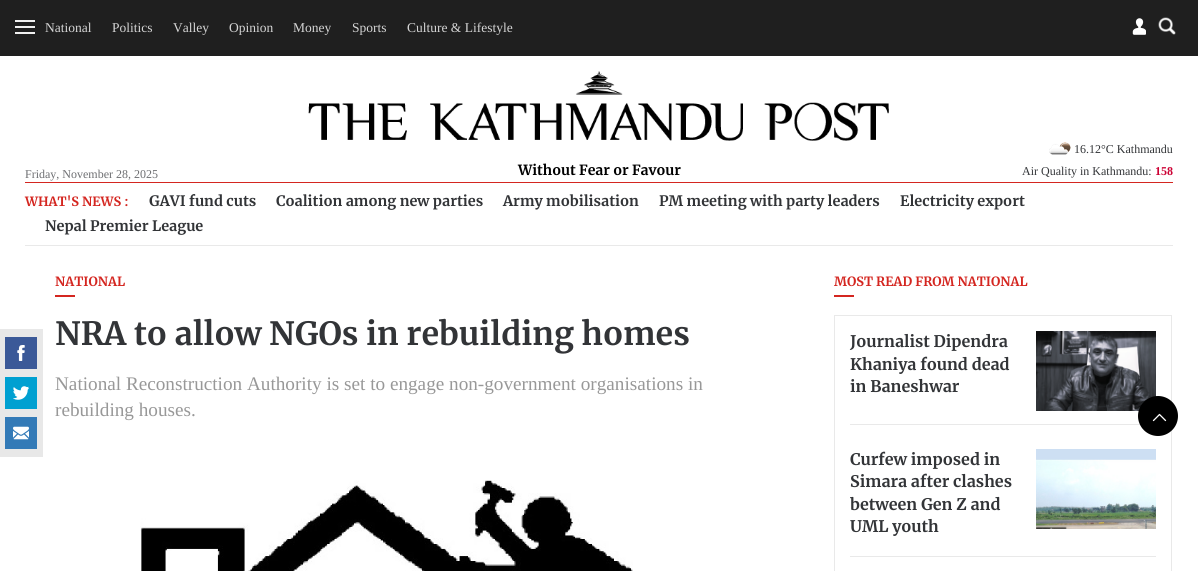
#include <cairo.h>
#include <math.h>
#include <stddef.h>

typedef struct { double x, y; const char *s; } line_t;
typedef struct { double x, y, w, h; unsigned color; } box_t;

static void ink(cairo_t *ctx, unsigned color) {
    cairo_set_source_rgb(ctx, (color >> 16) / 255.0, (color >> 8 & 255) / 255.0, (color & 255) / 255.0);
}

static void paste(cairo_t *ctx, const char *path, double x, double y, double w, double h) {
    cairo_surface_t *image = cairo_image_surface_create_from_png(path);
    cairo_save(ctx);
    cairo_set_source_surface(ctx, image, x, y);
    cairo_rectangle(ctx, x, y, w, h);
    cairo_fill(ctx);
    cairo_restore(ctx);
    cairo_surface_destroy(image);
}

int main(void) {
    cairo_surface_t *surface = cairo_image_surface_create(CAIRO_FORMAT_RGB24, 1198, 571);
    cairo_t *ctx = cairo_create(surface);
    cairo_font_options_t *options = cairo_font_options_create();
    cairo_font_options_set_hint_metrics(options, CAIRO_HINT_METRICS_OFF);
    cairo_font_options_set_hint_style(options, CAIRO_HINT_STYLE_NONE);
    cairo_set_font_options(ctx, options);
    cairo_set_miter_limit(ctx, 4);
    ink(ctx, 0xFFFFFF);
    cairo_paint(ctx);
    {
        static const box_t items[] = {
            {0, 0, 1198, 56, 0x1F1F1F},
            {15, 20, 20, 2, 0xF0F0F0},
            {15, 26, 20, 2, 0xF0F0F0},
            {15, 32, 20, 2, 0xF0F0F0},
        };
        for (size_t i = 0; i < sizeof items / sizeof *items; i++) {
            ink(ctx, items[i].color);
            cairo_rectangle(ctx, items[i].x, items[i].y, items[i].w, items[i].h);
            cairo_fill(ctx);
        }
    }
    cairo_select_font_face(ctx, "Liberation Serif", CAIRO_FONT_SLANT_NORMAL, CAIRO_FONT_WEIGHT_NORMAL);
    cairo_set_font_size(ctx, 13.5);
    ink(ctx, 0xD5D5D5);
    {
        static const line_t items[] = {
            {45, 32, "National"},
            {112, 32, "Politics"},
            {173, 32, "Valley"},
            {229, 32, "Opinion"},
            {293, 32, "Money"},
            {352, 32, "Sports"},
            {407, 32, "Culture & Lifestyle"},
        };
        for (size_t i = 0; i < sizeof items / sizeof *items; i++) {
            cairo_move_to(ctx, items[i].x, items[i].y);
            cairo_show_text(ctx, items[i].s);
        }
    }
    paste(ctx, "media/1.png", 1132, 18, 14, 17);
    paste(ctx, "media/2.png", 1158, 17, 18, 18);
    cairo_set_font_size(ctx, 12);
    ink(ctx, 0x6D6E71);
    cairo_move_to(ctx, 25, 178);
    cairo_show_text(ctx, "Friday, November 28, 2025");
    paste(ctx, "media/3.png", 308, 71, 581, 70);
    cairo_select_font_face(ctx, "Merriweather", CAIRO_FONT_SLANT_NORMAL, CAIRO_FONT_WEIGHT_BOLD);
    cairo_set_font_size(ctx, 14);
    ink(ctx, 0x000000);
    cairo_move_to(ctx, 518, 175);
    cairo_show_text(ctx, "Without Fear or Favour");
    paste(ctx, "media/4.png", 1049, 142, 22, 13);
    cairo_select_font_face(ctx, "Liberation Serif", CAIRO_FONT_SLANT_NORMAL, CAIRO_FONT_WEIGHT_NORMAL);
    cairo_set_font_size(ctx, 12);
    ink(ctx, 0x323437);
    cairo_move_to(ctx, 1074, 153);
    cairo_show_text(ctx, "16.12°C Kathmandu");
    cairo_move_to(ctx, 1022, 175);
    cairo_show_text(ctx, "Air Quality in Kathmandu:");
    cairo_select_font_face(ctx, "Liberation Serif", CAIRO_FONT_SLANT_NORMAL, CAIRO_FONT_WEIGHT_BOLD);
    ink(ctx, 0xCC0033);
    cairo_move_to(ctx, 1155, 175);
    cairo_show_text(ctx, "158");
    ink(ctx, 0xD42620);
    cairo_rectangle(ctx, 25, 182, 1148, 1);
    cairo_fill(ctx);
    ink(ctx, 0xE9E9E9);
    cairo_rectangle(ctx, 25, 245, 1148, 1);
    cairo_fill(ctx);
    cairo_select_font_face(ctx, "Merriweather", CAIRO_FONT_SLANT_NORMAL, CAIRO_FONT_WEIGHT_BOLD);
    cairo_set_font_size(ctx, 12.75);
    ink(ctx, 0xD42620);
    cairo_move_to(ctx, 25, 206);
    cairo_show_text(ctx, "WHAT'S NEWS :");
    cairo_set_font_size(ctx, 14.4);
    ink(ctx, 0x323437);
    {
        static const line_t items[] = {
            {149, 206, "GAVI fund cuts"},
            {276, 206, "Coalition among new parties"},
            {503, 206, "Army mobilisation"},
            {659, 206, "PM meeting with party leaders"},
            {900, 206, "Electricity export"},
            {45, 231, "Nepal Premier League"},
        };
        for (size_t i = 0; i < sizeof items / sizeof *items; i++) {
            cairo_move_to(ctx, items[i].x, items[i].y);
            cairo_show_text(ctx, items[i].s);
        }
    }
    cairo_set_font_size(ctx, 12.75);
    ink(ctx, 0xD42620);
    cairo_move_to(ctx, 55, 286);
    cairo_show_text(ctx, "NATIONAL");
    {
        static const box_t items[] = {
            {55, 295, 20, 2, 0xD42620},
            {0, 329, 43, 128, 0xE8E8E8},
            {5, 337, 32, 32, 0x3B5998},
        };
        for (size_t i = 0; i < sizeof items / sizeof *items; i++) {
            ink(ctx, items[i].color);
            cairo_rectangle(ctx, items[i].x, items[i].y, items[i].w, items[i].h);
            cairo_fill(ctx);
        }
    }
    paste(ctx, "media/5.png", 17, 345, 8, 16);
    ink(ctx, 0x00A0D1);
    cairo_rectangle(ctx, 5, 377, 32, 32);
    cairo_fill(ctx);
    paste(ctx, "media/6.png", 13, 386, 16, 14);
    ink(ctx, 0x337AB7);
    cairo_rectangle(ctx, 5, 417, 32, 32);
    cairo_fill(ctx);
    paste(ctx, "media/7.png", 13, 426, 16, 14);
    cairo_set_font_size(ctx, 32);
    ink(ctx, 0x323437);
    cairo_move_to(ctx, 55, 345);
    cairo_show_text(ctx, "NRA to allow NGOs in rebuilding homes");
    cairo_select_font_face(ctx, "Liberation Serif", CAIRO_FONT_SLANT_NORMAL, CAIRO_FONT_WEIGHT_NORMAL);
    cairo_set_font_size(ctx, 19.2);
    ink(ctx, 0x989898);
    cairo_move_to(ctx, 55, 390);
    cairo_show_text(ctx, "National Reconstruction Authority is set to engage non-government organisations in");
    cairo_move_to(ctx, 55, 416);
    cairo_show_text(ctx, "rebuilding houses.");
    paste(ctx, "media/8.png", 140, 480, 493, 91);
    cairo_select_font_face(ctx, "Merriweather", CAIRO_FONT_SLANT_NORMAL, CAIRO_FONT_WEIGHT_BOLD);
    cairo_set_font_size(ctx, 12.75);
    ink(ctx, 0xD42620);
    cairo_move_to(ctx, 834, 286);
    cairo_show_text(ctx, "MOST READ FROM NATIONAL");
    cairo_rectangle(ctx, 834, 295, 20, 2);
    cairo_fill(ctx);
    cairo_rectangle(ctx, 834.5, 315.5, 337, 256);
    ink(ctx, 0xE9E9E9);
    cairo_set_line_width(ctx, 1);
    cairo_stroke(ctx);
    cairo_rectangle(ctx, 850, 424, 291, 1);
    cairo_fill(ctx);
    cairo_set_font_size(ctx, 16);
    ink(ctx, 0x323437);
    {
        static const line_t items[] = {
            {850, 347, "Journalist Dipendra"},
            {850, 370, "Khaniya found dead"},
            {850, 392, "in Baneshwar"},
        };
        for (size_t i = 0; i < sizeof items / sizeof *items; i++) {
            cairo_move_to(ctx, items[i].x, items[i].y);
            cairo_show_text(ctx, items[i].s);
        }
    }
    paste(ctx, "media/9.png", 1036, 331, 120, 80);
    ink(ctx, 0xE9E9E9);
    cairo_rectangle(ctx, 850, 556, 306, 1);
    cairo_fill(ctx);
    ink(ctx, 0x323437);
    {
        static const line_t items[] = {
            {850, 465, "Curfew imposed in"},
            {850, 487, "Simara after clashes"},
            {850, 510, "between Gen Z and"},
            {850, 532, "UML youth"},
        };
        for (size_t i = 0; i < sizeof items / sizeof *items; i++) {
            cairo_move_to(ctx, items[i].x, items[i].y);
            cairo_show_text(ctx, items[i].s);
        }
    }
    paste(ctx, "media/10.png", 1036, 449, 120, 80);
    ink(ctx, 0x000000);
    cairo_arc(ctx, 1158, 416, 20, 0, 2 * M_PI);
    cairo_fill(ctx);
    cairo_new_path(ctx);
    cairo_move_to(ctx, 1159.5, 414.5);
    cairo_line_to(ctx, 1165.5, 420.5);
    cairo_move_to(ctx, 1153.5, 420.5);
    cairo_line_to(ctx, 1159.5, 414.5);
    ink(ctx, 0xFFFFFF);
    cairo_set_line_width(ctx, 1.3);
    cairo_set_line_cap(ctx, CAIRO_LINE_CAP_ROUND);
    cairo_set_line_join(ctx, CAIRO_LINE_JOIN_ROUND);
    cairo_stroke(ctx);
    cairo_surface_write_to_png(surface, "image.png");
    cairo_font_options_destroy(options);
    cairo_destroy(ctx);
    cairo_surface_destroy(surface);
    return 0;
}
